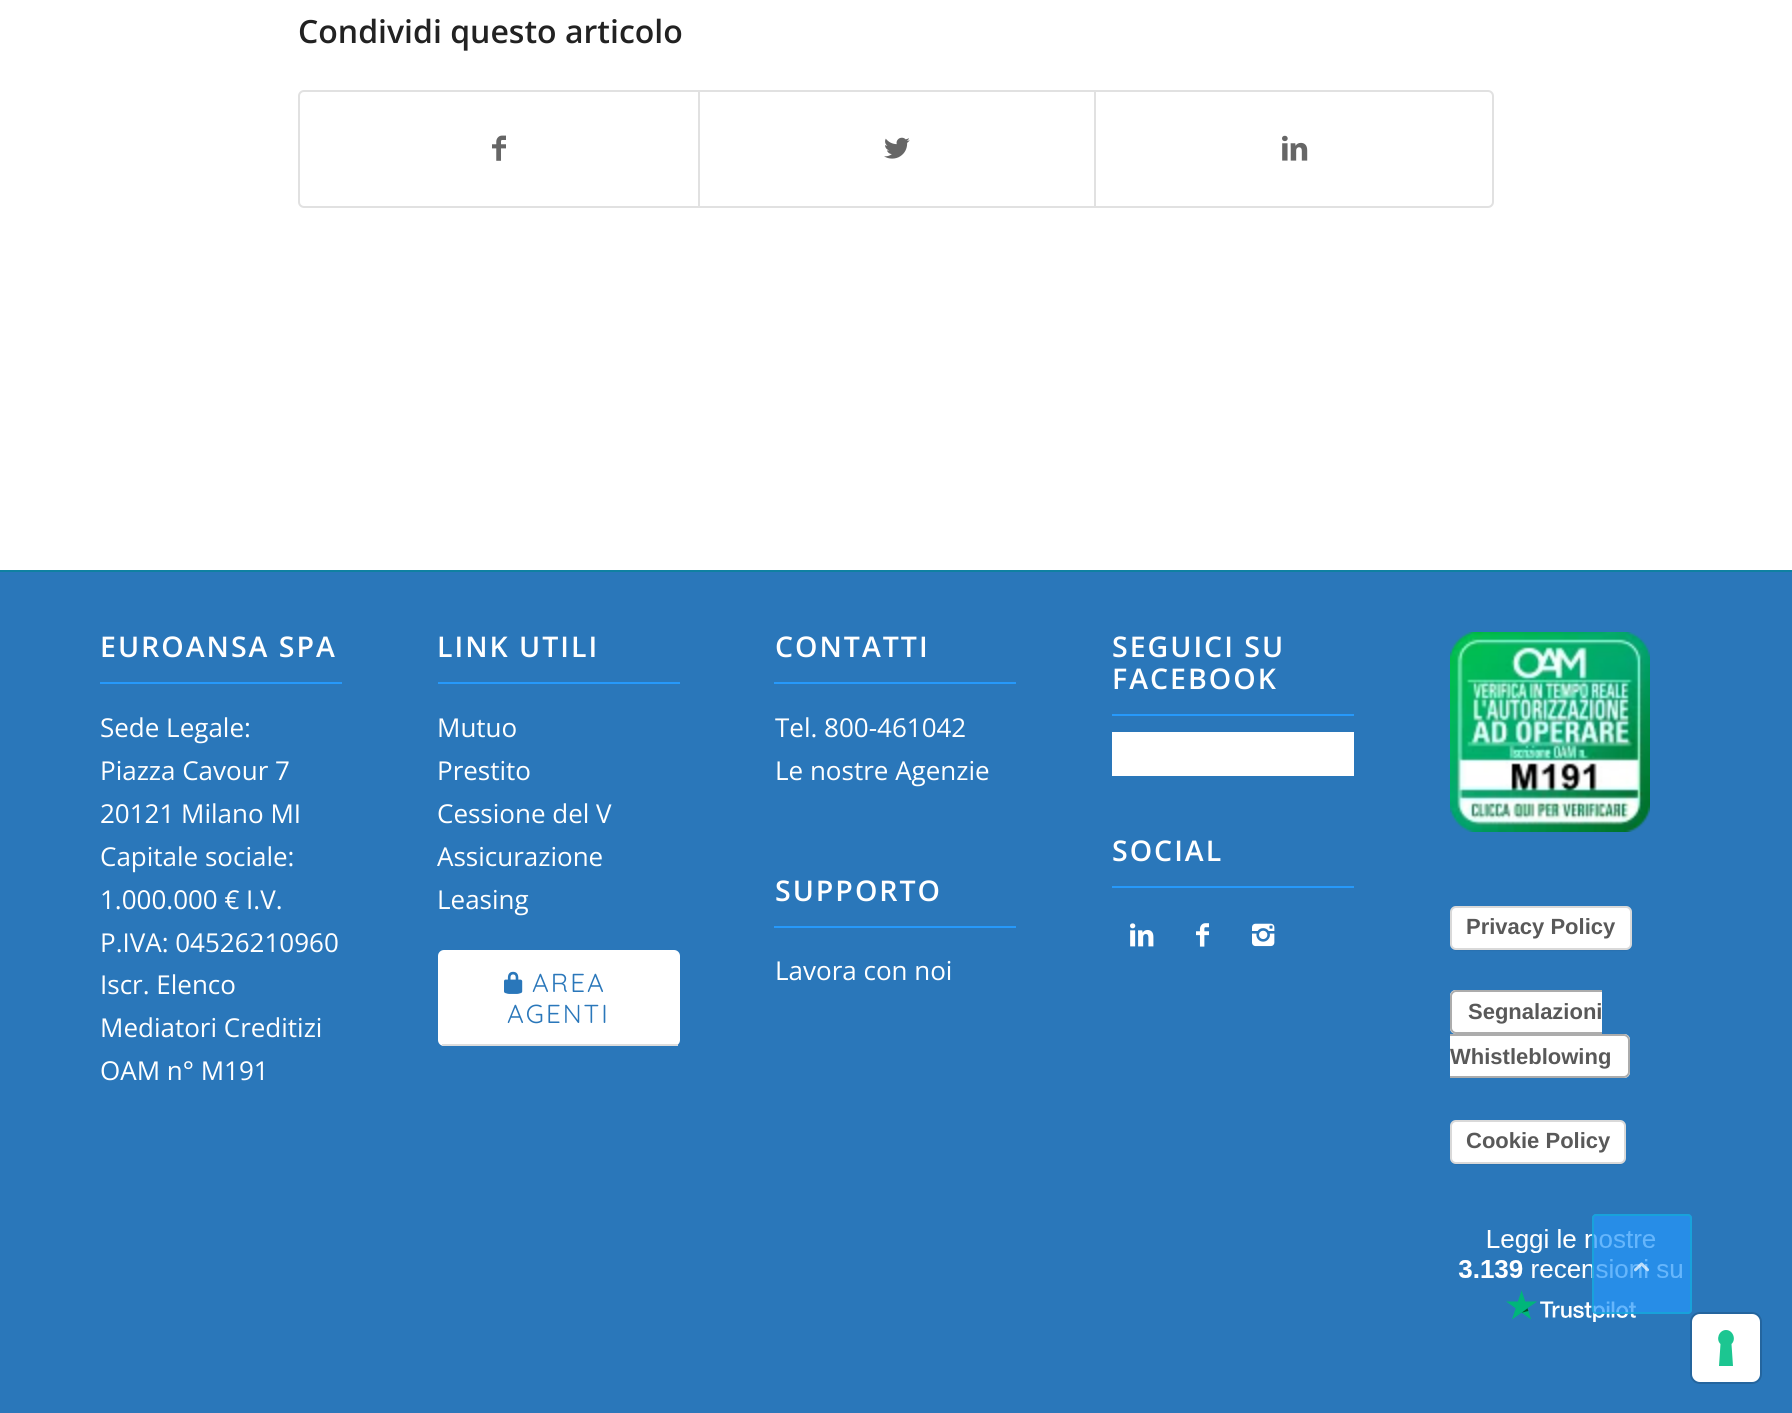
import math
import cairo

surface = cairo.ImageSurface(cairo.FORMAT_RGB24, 1792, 1413)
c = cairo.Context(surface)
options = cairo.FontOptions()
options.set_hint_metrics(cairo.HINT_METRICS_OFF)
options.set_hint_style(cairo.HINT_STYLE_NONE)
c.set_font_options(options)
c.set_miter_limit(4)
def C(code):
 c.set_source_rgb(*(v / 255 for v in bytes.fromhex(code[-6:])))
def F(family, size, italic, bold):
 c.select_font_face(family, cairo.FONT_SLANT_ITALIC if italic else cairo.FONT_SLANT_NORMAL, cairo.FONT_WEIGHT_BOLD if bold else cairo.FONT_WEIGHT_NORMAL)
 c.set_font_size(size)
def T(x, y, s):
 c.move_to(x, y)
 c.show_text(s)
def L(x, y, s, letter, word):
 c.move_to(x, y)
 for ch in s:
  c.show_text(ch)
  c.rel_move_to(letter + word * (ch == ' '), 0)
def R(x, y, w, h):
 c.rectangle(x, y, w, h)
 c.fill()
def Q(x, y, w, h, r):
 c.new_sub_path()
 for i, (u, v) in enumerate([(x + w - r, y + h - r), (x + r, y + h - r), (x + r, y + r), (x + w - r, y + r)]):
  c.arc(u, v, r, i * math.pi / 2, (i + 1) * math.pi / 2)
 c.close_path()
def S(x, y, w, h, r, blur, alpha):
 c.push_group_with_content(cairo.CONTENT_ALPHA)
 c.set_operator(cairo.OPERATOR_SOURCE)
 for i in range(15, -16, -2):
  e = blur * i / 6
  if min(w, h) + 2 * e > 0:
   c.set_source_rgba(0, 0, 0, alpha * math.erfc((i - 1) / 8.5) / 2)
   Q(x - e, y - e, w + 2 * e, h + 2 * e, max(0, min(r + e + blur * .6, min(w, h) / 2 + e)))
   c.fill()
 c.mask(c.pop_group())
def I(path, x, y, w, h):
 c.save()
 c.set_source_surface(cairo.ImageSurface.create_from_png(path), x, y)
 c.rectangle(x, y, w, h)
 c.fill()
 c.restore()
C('ffffff')
c.paint()
F('Open Sans SemiBold',32,0,0)
C('222222')
T(298,43,'Condividi questo articolo')
Q(299,91,1194,116,5)
C('e1e1e1')
c.stroke()
I('1.png',492,135,14,26)
R(698,92,2,114)
I('2.png',884,137,26,22)
R(1094,92,2,114)
I('3.png',1282,135,26,26)
C('2a77ba')
R(0,572,1792,841)
C('0f81a1')
R(0,570,1792,2)
C('2699fb')
R(100,682,242,2)
F('Open Sans SemiBold',28.5,0,0)
C('ffffff')
L(100,657,'EUROANSA SPA',2,0)
F('Open Sans',26,0,0)
T(100,737,'Sede Legale:')
T(100,780,'Piazza Cavour 7')
T(100,823,'20121 Milano MI')
T(100,866,'Capitale sociale:')
T(100,909,'1.000.000 € I.V.')
T(100,952,'P.IVA: 04526210960')
T(100,994,'Iscr. Elenco')
T(100,1037,'Mediatori Creditizi')
T(100,1080,'OAM n° M191')
C('2699fb')
R(438,682,242,2)
F('Open Sans SemiBold',28.5,0,0)
C('ffffff')
L(437,657,'LINK UTILI',2,0)
F('Open Sans',26,0,0)
T(437,737,'Mutuo')
T(437,780,'Prestito')
T(437,823,'Cessione del V')
T(437,866,'Assicurazione')
T(437,909,'Leasing')
Q(438,950,242,96,6)
c.fill()
C('dddddd')
R(442,1044,236,2)
I('4.png',504,971,19,23)
F('Quicksand',26,0,0)
C('2a77ba')
L(532,992,'AREA',2,0)
L(507,1023,'AGENTI',2,0)
C('2699fb')
R(774,682,242,2)
F('Open Sans SemiBold',28.5,0,0)
C('ffffff')
L(775,657,'CONTATTI',2,0)
F('Open Sans',26,0,0)
T(775,737,'Tel. 800-461042')
T(775,780,'Le nostre Agenzie')
C('2699fb')
R(774,926,242,2)
F('Open Sans SemiBold',28.5,0,0)
C('ffffff')
L(775,901,'SUPPORTO',2,0)
F('Open Sans',26,0,0)
T(775,980,'Lavora con noi')
C('2699fb')
R(1112,714,242,2)
F('Open Sans SemiBold',28.5,0,0)
C('ffffff')
L(1112,657,'SEGUICI SU',2,0)
L(1112,689,'FACEBOOK',2,0)
R(1112,732,242,44)
C('2699fb')
R(1112,886,242,2)
C('ffffff')
L(1112,861,'SOCIAL',2,0)
I('5.png',1130,923,24,24)
I('6.png',1196,923,13,24)
I('7.png',1252,923,23,24)
I('8.png',1450,632,200,200)
C('000000')
S(1452,910,178,40,4,1,.15)
C('ffffff')
Q(1450,906,182,44,6)
c.fill()
Q(1451,907,180,42,5)
c.set_source_rgba(0,0,0,0.15)
c.stroke()
F('Liberation Sans',22,0,1)
C('595959')
T(1466,934,'Privacy Policy')
C('ffffff')
c.new_path()
c.move_to(1456,990)
c.line_to(1602,990)
c.line_to(1602,1034)
c.line_to(1456,1034)
c.curve_to(1452.5,1034,1450,1031.5,1450,1028)
c.line_to(1450,996)
c.curve_to(1450,992.5,1452.5,990,1456,990)
c.close_path()
c.fill()
C('acacac')
c.set_fill_rule(cairo.FILL_RULE_EVEN_ODD)
c.new_path()
c.move_to(1456,990)
c.line_to(1602,990)
c.line_to(1602,1034)
c.line_to(1456,1034)
c.curve_to(1453,1034,1450,1031,1450,1028)
c.line_to(1450,996)
c.curve_to(1450,993,1453,990,1456,990)
c.close_path()
c.move_to(1456,992)
c.line_to(1602,992)
c.line_to(1602,1032)
c.line_to(1456,1032)
c.curve_to(1454,1032,1452,1030,1452,1028)
c.line_to(1452,996)
c.curve_to(1452,994,1454,992,1456,992)
c.close_path()
c.fill()
C('595959')
T(1468,1019,'Segnalazioni')
C('ffffff')
c.new_path()
c.move_to(1450,1034)
c.line_to(1624,1034)
c.curve_to(1627.5,1034,1630,1036.5,1630,1040)
c.line_to(1630,1072)
c.curve_to(1630,1075.5,1627.5,1078,1624,1078)
c.line_to(1450,1078)
c.close_path()
c.fill()
C('acacac')
c.new_path()
c.move_to(1450,1034)
c.line_to(1624,1034)
c.curve_to(1627,1034,1630,1037,1630,1040)
c.line_to(1630,1072)
c.curve_to(1630,1075,1627,1078,1624,1078)
c.line_to(1450,1078)
c.close_path()
c.move_to(1450,1036)
c.line_to(1624,1036)
c.curve_to(1626,1036,1628,1038,1628,1040)
c.line_to(1628,1072)
c.curve_to(1628,1074,1626,1076,1624,1076)
c.line_to(1450,1076)
c.close_path()
c.fill()
C('595959')
T(1450,1064,'Whistleblowing')
C('000000')
S(1452,1124,172,40,4,1,.15)
C('ffffff')
Q(1450,1120,176,44,6)
c.fill()
Q(1451,1121,174,42,5)
c.set_source_rgba(0,0,0,0.15)
c.stroke()
C('595959')
T(1466,1148,'Cookie Policy')
I('9.png',1458,1229,224,93)
c.set_source_rgba(0.149,0.596,0.984,0.7)
Q(1592,1214,100,100,4)
c.fill()
Q(1593,1215,98,98,3)
c.set_source_rgba(0.067,0.671,0.839,0.7)
c.stroke()
I('10.png',1634,1262,16,10)
Q(1691,1313,70,70,9)
C('24659e')
c.stroke()
C('ffffff')
Q(1692,1314,68,68,8)
c.fill()
C('1cc691')
c.new_path()
c.move_to(1726,1330)
c.curve_to(1733,1330,1736.5,1339.5,1731.5,1344)
c.line_to(1733,1366)
c.line_to(1719,1366)
c.line_to(1720.5,1344)
c.curve_to(1715.5,1339.5,1719,1330,1726,1330)
c.close_path()
c.fill()
surface.write_to_png('o.png')
